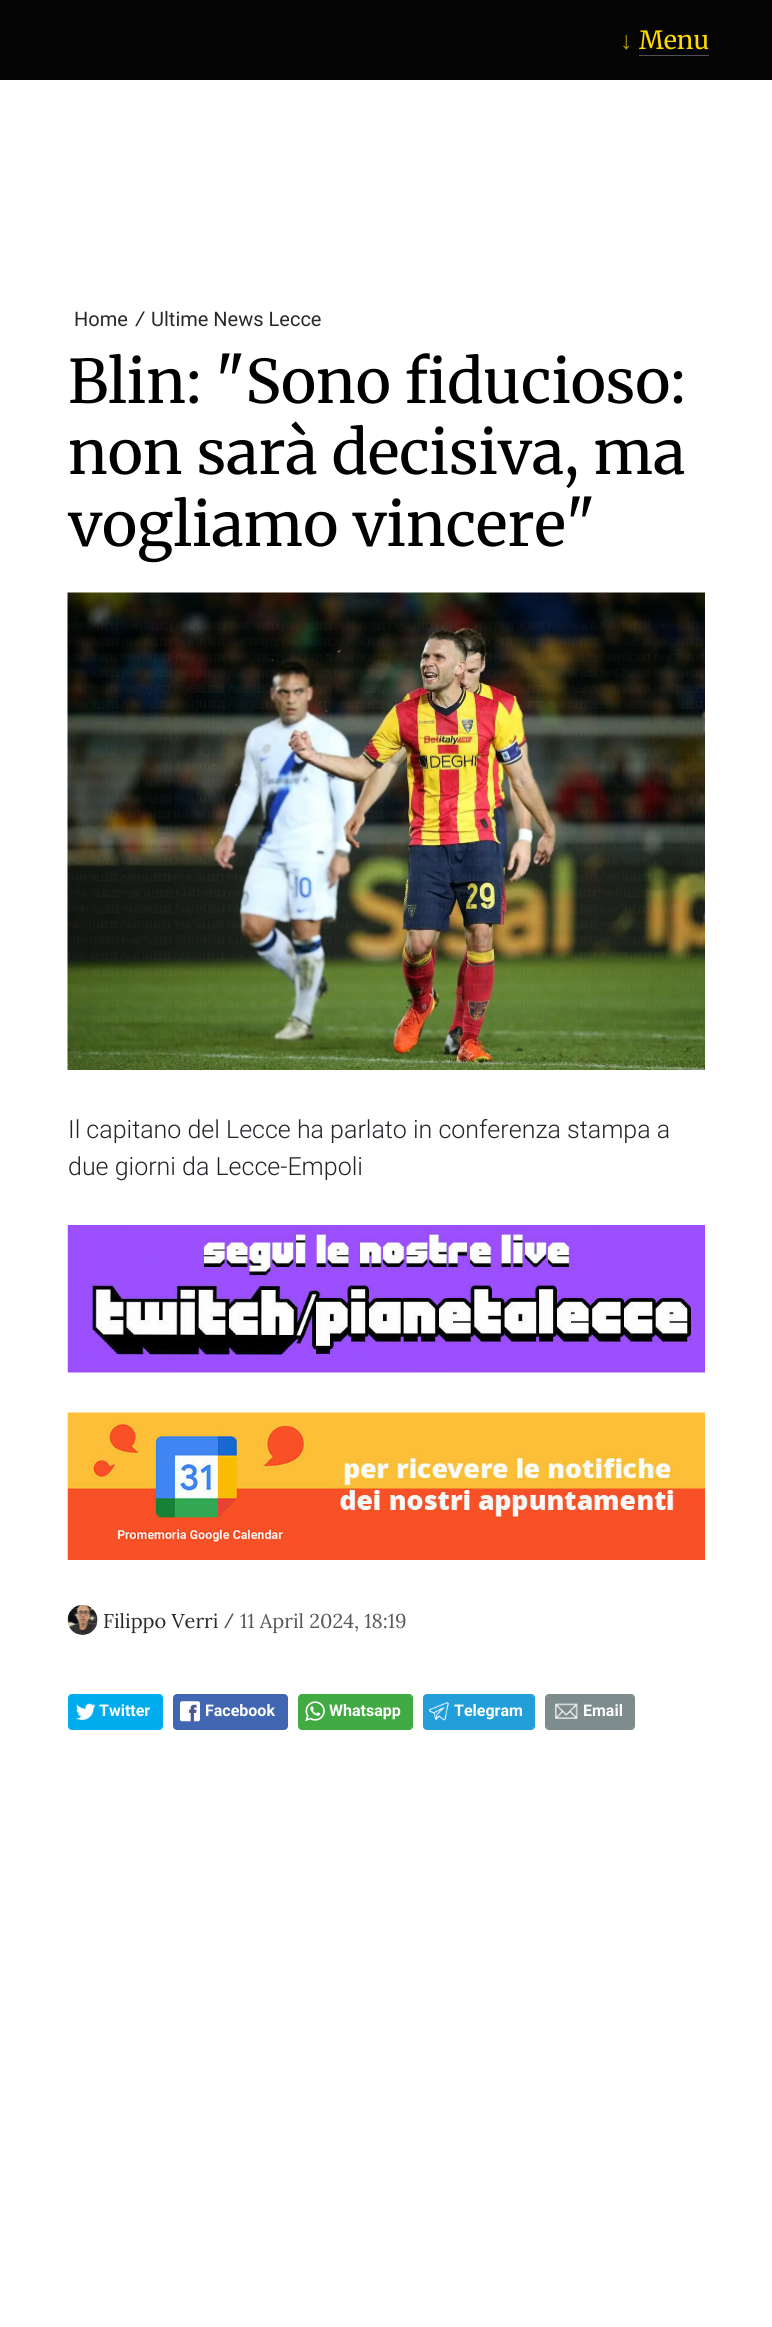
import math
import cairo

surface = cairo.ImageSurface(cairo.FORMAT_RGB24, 772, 2327)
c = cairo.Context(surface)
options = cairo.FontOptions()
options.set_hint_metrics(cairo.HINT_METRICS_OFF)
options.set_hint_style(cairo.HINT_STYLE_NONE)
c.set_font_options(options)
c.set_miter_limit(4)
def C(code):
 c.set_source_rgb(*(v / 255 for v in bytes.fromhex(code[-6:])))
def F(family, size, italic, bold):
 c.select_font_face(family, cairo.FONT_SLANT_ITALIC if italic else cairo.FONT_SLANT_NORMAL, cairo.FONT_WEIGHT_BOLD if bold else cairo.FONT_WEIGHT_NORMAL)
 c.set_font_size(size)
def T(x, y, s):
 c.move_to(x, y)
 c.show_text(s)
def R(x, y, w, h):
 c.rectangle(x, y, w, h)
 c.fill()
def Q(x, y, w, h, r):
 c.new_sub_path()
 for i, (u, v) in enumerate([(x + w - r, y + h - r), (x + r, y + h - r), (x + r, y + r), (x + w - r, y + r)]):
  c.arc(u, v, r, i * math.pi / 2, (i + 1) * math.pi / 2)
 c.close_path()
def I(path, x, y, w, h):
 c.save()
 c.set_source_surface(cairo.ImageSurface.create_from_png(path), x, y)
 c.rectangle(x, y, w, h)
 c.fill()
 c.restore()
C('ffffff')
c.paint()
C('050505')
R(0,0,772,80)
F('Liberation Sans',25,0,0)
C('b49a02')
T(620,49,'↓')
F('Merriweather Light',25,0,0)
C('ffda00')
T(639,49,'Menu')
C('505050')
R(639,55,70,1)
F('Roboto',20,0,0)
C('292929')
T(74,326,'Home')
F('Liberation Mono',20,0,0)
C('212529')
T(134,326,'/')
F('Roboto',20,0,0)
C('292929')
T(151,326,'Ultime News Lecce')
F('Merriweather Light',60,0,0)
C('000000')
T(68,403,'Blin: "Sono fiducioso:')
T(68,474,'non sarà decisiva, ma')
T(68,546,'vogliamo vincere"')
I('1.png',67,592,638,478)
F('Roboto Light',25,0,0)
C('212529')
T(68,1138,'Il capitano del Lecce ha parlato in conferenza stampa a')
T(68,1175,'due giorni da Lecce-Empoli')
I('2.png',67,1225,638,148)
I('3.png',67,1412,638,148)
I('4.png',67,1605,31,30)
F('Lora',20,0,0)
C('292929')
T(103,1628,'Filippo Verri')
F('Liberation Mono',20,0,0)
C('595959')
T(223,1628,'/')
F('Lora',20,0,0)
T(240,1628,'11 April 2024, 18:19')
C('00acee')
Q(68,1694,95,36,4)
c.fill()
I('5.png',76,1703,20,17)
F('Roboto',16,0,1)
C('ffffff')
T(99,1716,'Twitter')
C('4267b2')
Q(173,1694,115,36,4)
c.fill()
I('6.png',180,1701,20,21)
C('ffffff')
T(205,1716,'Facebook')
C('42aa42')
Q(298,1694,115,36,4)
c.fill()
I('7.png',305,1701,20,21)
C('ffffff')
T(329,1716,'Whatsapp')
C('229ed9')
Q(423,1694,112,36,4)
c.fill()
I('8.png',429,1702,20,19)
C('ffffff')
T(454,1716,'Telegram')
C('7f8c8d')
Q(545,1694,90,36,4)
c.fill()
I('9.png',555,1703,23,16)
C('ffffff')
T(583,1716,'Email')
surface.write_to_png('o.png')
